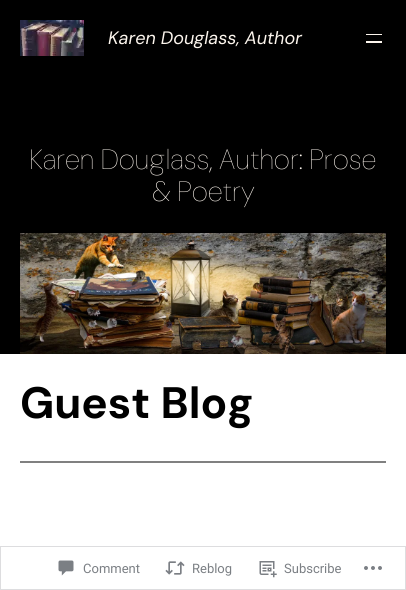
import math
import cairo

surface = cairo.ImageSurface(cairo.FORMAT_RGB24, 406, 590)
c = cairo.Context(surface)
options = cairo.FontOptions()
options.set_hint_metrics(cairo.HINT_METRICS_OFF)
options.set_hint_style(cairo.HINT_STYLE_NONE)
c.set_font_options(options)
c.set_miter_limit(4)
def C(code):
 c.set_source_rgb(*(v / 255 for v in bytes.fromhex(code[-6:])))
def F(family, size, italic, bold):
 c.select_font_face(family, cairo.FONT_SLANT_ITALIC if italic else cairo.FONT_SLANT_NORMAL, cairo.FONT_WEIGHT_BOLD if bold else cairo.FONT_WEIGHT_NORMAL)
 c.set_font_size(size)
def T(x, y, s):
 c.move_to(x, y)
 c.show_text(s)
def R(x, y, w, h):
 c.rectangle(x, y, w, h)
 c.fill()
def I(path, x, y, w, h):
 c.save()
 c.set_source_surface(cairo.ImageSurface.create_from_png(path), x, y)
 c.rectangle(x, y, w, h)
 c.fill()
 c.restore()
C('ffffff')
c.paint()
C('000000')
R(0,0,406,354)
I('1.png',20,20,64,36)
F('DM Sans',18,1,0)
C('fcf5ed')
T(108,44,'Karen Douglass, Author')
R(366,34,16,1)
R(366,41,16,2)
F('DM Sans Thin',28,0,0)
T(29,169,'Karen Douglass, Author: Prose')
T(152,201,'& Poetry')
I('2.png',20,233,366,121)
F('DM Sans',44,0,1)
C('000000')
T(20,418,'Guest Blog')
C('808080')
R(20,461,366,2)
c.rectangle(.5,546.5,405,43)
c.set_source_rgba(0.863,0.863,0.871,0.98)
c.set_line_width(1)
c.stroke()
I('3.png',58,560,16,16)
F('Roboto',13,0,0)
C('7b7f84')
T(83,573,'Comment')
I('4.png',165,561,20,14)
T(192,573,'Reblog')
I('5.png',259,561,18,17)
T(284,573,'Subscribe')
I('6.png',364,566,18,4)
surface.write_to_png('o.png')
